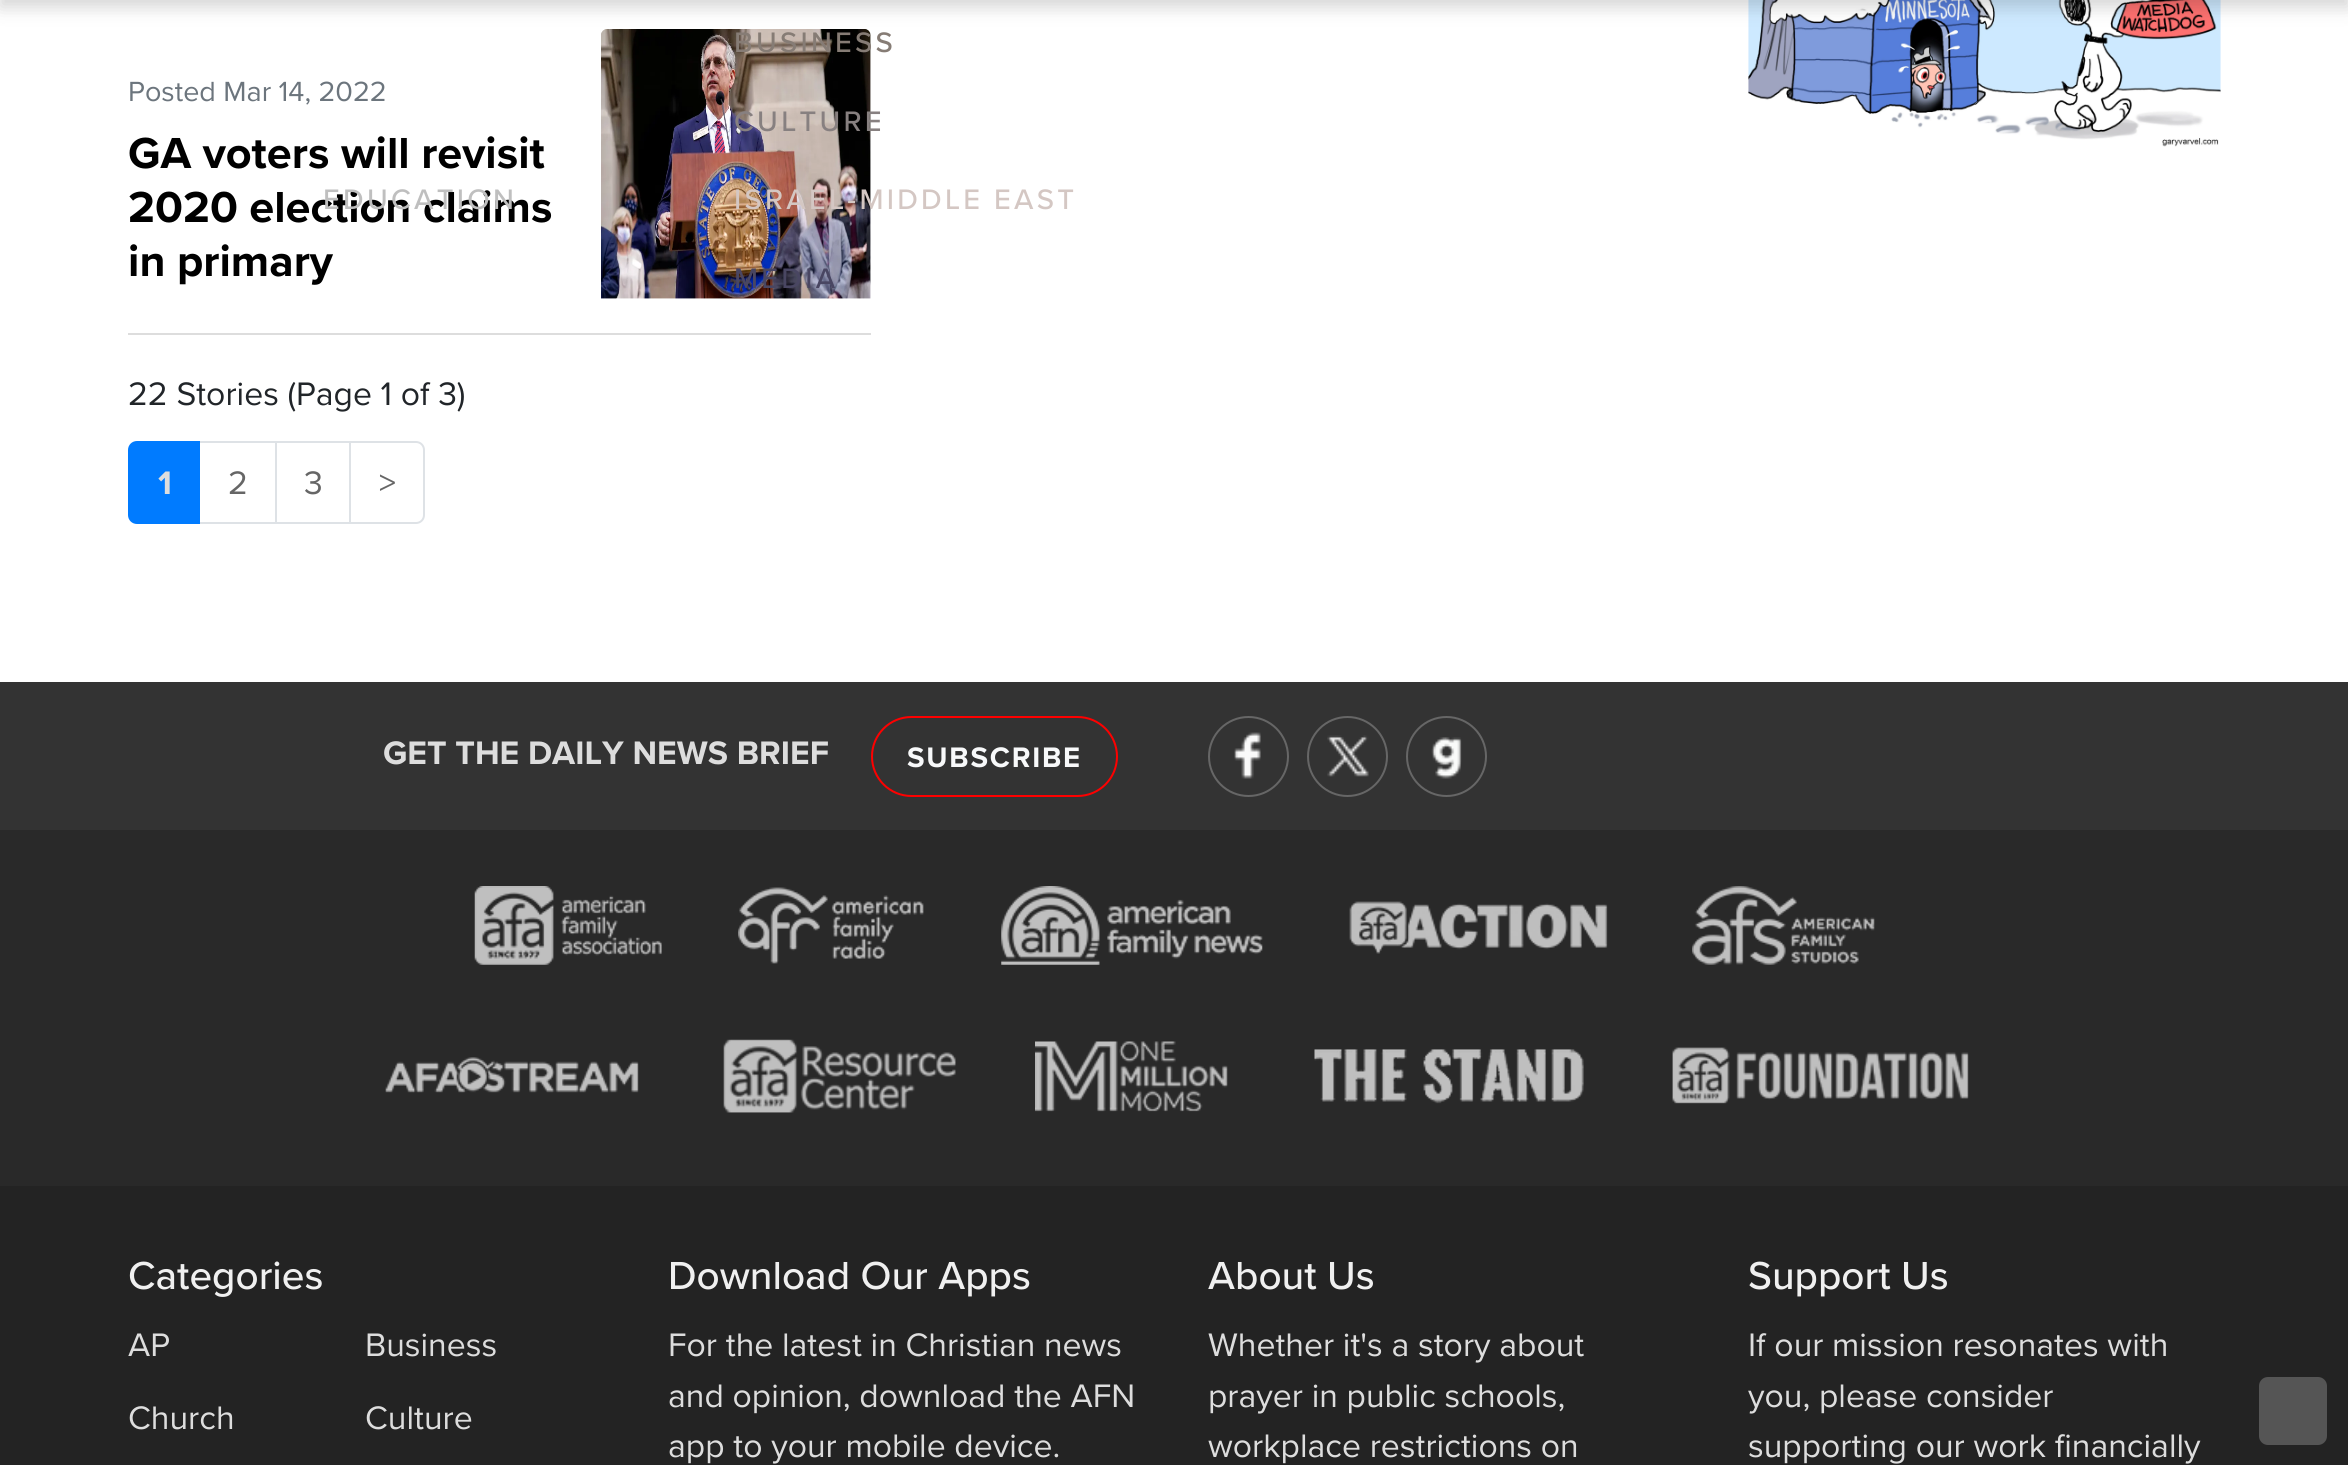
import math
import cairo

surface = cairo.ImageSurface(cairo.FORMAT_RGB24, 2348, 1465)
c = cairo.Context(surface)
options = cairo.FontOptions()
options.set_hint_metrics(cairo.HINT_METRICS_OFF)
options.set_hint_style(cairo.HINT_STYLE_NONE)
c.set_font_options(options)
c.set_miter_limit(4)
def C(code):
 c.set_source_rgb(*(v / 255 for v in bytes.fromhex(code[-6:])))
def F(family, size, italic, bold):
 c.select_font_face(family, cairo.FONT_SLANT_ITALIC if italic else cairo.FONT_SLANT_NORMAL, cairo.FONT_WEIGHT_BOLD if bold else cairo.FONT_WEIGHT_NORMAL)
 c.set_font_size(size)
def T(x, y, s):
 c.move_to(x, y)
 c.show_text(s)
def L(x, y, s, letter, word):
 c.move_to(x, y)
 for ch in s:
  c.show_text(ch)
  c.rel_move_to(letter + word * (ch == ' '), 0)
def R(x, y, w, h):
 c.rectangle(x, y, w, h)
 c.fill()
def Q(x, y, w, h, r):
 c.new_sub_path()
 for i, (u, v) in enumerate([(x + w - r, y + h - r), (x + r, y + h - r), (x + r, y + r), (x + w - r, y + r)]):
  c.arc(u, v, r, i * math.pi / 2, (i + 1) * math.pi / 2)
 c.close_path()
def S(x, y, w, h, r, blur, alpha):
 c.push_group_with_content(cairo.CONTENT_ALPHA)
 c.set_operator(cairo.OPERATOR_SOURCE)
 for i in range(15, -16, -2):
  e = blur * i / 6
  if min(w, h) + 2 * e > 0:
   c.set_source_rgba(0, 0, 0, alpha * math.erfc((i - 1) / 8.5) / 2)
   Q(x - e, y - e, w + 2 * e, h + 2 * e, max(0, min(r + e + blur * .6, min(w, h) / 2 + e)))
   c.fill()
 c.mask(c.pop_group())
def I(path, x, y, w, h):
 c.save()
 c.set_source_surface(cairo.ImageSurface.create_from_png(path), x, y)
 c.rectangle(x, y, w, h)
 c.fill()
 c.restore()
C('ffffff')
c.paint()
I('1.png',601,29,270,270)
I('2.png',1748,0,473,147)
C('000000')
S(0,-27,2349,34,0,9,.17)
F('Proxima Nova Medium',29.25,0,0)
C('867c75')
L(734,52,'BUSINESS',3.25,0)
C('878080')
L(734,131,'CULTURE',3.25,0)
F('Proxima Nova',45,0,1)
C('000000')
T(128,222,'2020 election claims')
F('Proxima Nova Medium',29.25,0,0)
C('bfbfbf')
L(323,209,'EDUCATION',3.25,0)
C('d4c7c3')
L(734,209,'ISRAEL-MIDDLE EAST',3.25,0)
C('494662')
L(734,288,'MEDIA',3.25,0)
C('dddddd')
R(128,333,743,2)
F('Proxima Nova',28.75,0,0)
C('6c757d')
T(128,101,'Posted Mar 14, 2022')
F('Proxima Nova',45,0,1)
C('000000')
T(128,168,'GA voters will revisit')
T(128,276,'in primary')
F('Proxima Nova',33.75,0,0)
C('212529')
T(128,405,'22 Stories (Page 1 of 3)')
c.rectangle(199,442,77,81)
C('dee2e6')
c.stroke()
C('007bff')
c.new_path()
c.move_to(137,442)
c.line_to(199,442)
c.line_to(199,523)
c.line_to(137,523)
c.curve_to(132.5,523,129,519.5,129,515)
c.line_to(129,450)
c.curve_to(129,445.5,132.5,442,137,442)
c.close_path()
c.fill_preserve()
c.stroke()
F('Proxima Nova',33.75,0,1)
C('dddddd')
T(158,494,'1')
F('Proxima Nova',33.75,0,0)
C('666666')
T(228,494,'2')
c.rectangle(276,442,74,81)
C('dee2e6')
c.stroke()
C('666666')
T(304,494,'3')
C('ffffff')
c.new_path()
c.move_to(350,442)
c.line_to(416,442)
c.curve_to(420.5,442,424,445.5,424,450)
c.line_to(424,515)
c.curve_to(424,519.5,420.5,523,416,523)
c.line_to(350,523)
c.close_path()
c.fill_preserve()
C('dee2e6')
c.stroke()
C('666666')
T(379,494,'>')
C('232323')
R(0,1186,2348,279)
C('333333')
R(0,682,2348,148)
F('Proxima Nova',33.75,0,1)
C('dddddd')
T(383,764,'GET THE DAILY NEWS BRIEF')
Q(872,717,245,79,39.5)
C('ff0000')
c.stroke()
F('Proxima Nova',29.25,0,1)
C('f8f9fa')
L(907,767,'SUBSCRIBE',1.75,0)
c.new_path()
c.arc(1248.5,756.5,39.5,0,2 * math.pi)
C('666666')
c.stroke()
I('3.png',1234,732,27,47)
c.arc(1347.5,756.5,39.5,0,2 * math.pi)
c.stroke()
I('4.png',1327,735,42,42)
c.arc(1446.5,756.5,39.5,0,2 * math.pi)
c.stroke()
I('5.png',1431,737,31,42)
C('292929')
R(0,830,2348,356)
I('6.png',474,886,188,79)
I('7.png',738,887,186,77)
I('8.png',1001,886,262,79)
I('9.png',1349,901,259,53)
I('10.png',1692,886,183,79)
I('11.png',385,1057,254,36)
I('12.png',723,1039,233,74)
I('13.png',1035,1041,193,71)
I('14.png',1314,1049,270,55)
I('15.png',1672,1047,297,57)
F('Proxima Nova Medium',40.5,0,0)
C('f0f0f0')
T(128,1289,'Categories')
F('Proxima Nova',33.75,0,0)
C('dddddd')
T(128,1356,'AP')
T(365,1356,'Business')
T(128,1429,'Church')
T(365,1429,'Culture')
F('Proxima Nova Medium',40.5,0,0)
C('f0f0f0')
T(668,1289,'Download Our Apps')
F('Proxima Nova',33.75,0,0)
C('dddddd')
T(668,1356,'For the latest in Christian news')
T(668,1407,'and opinion, download the AFN')
T(668,1457,'app to your mobile device.')
F('Proxima Nova Medium',40.5,0,0)
C('f0f0f0')
T(1208,1289,'About Us')
F('Proxima Nova',33.75,0,0)
C('dddddd')
T(1208,1356,'Whether it\'s a story about')
T(1208,1407,'prayer in public schools,')
T(1208,1457,'workplace restrictions on')
F('Proxima Nova Medium',40.5,0,0)
C('f0f0f0')
T(1748,1289,'Support Us')
F('Proxima Nova',33.75,0,0)
C('dddddd')
T(1748,1356,'If our mission resonates with')
T(1748,1407,'you, please consider')
T(1748,1457,'supporting our work financially')
C('555555')
Q(2259,1377,68,68,9)
c.fill()
surface.write_to_png('o.png')
